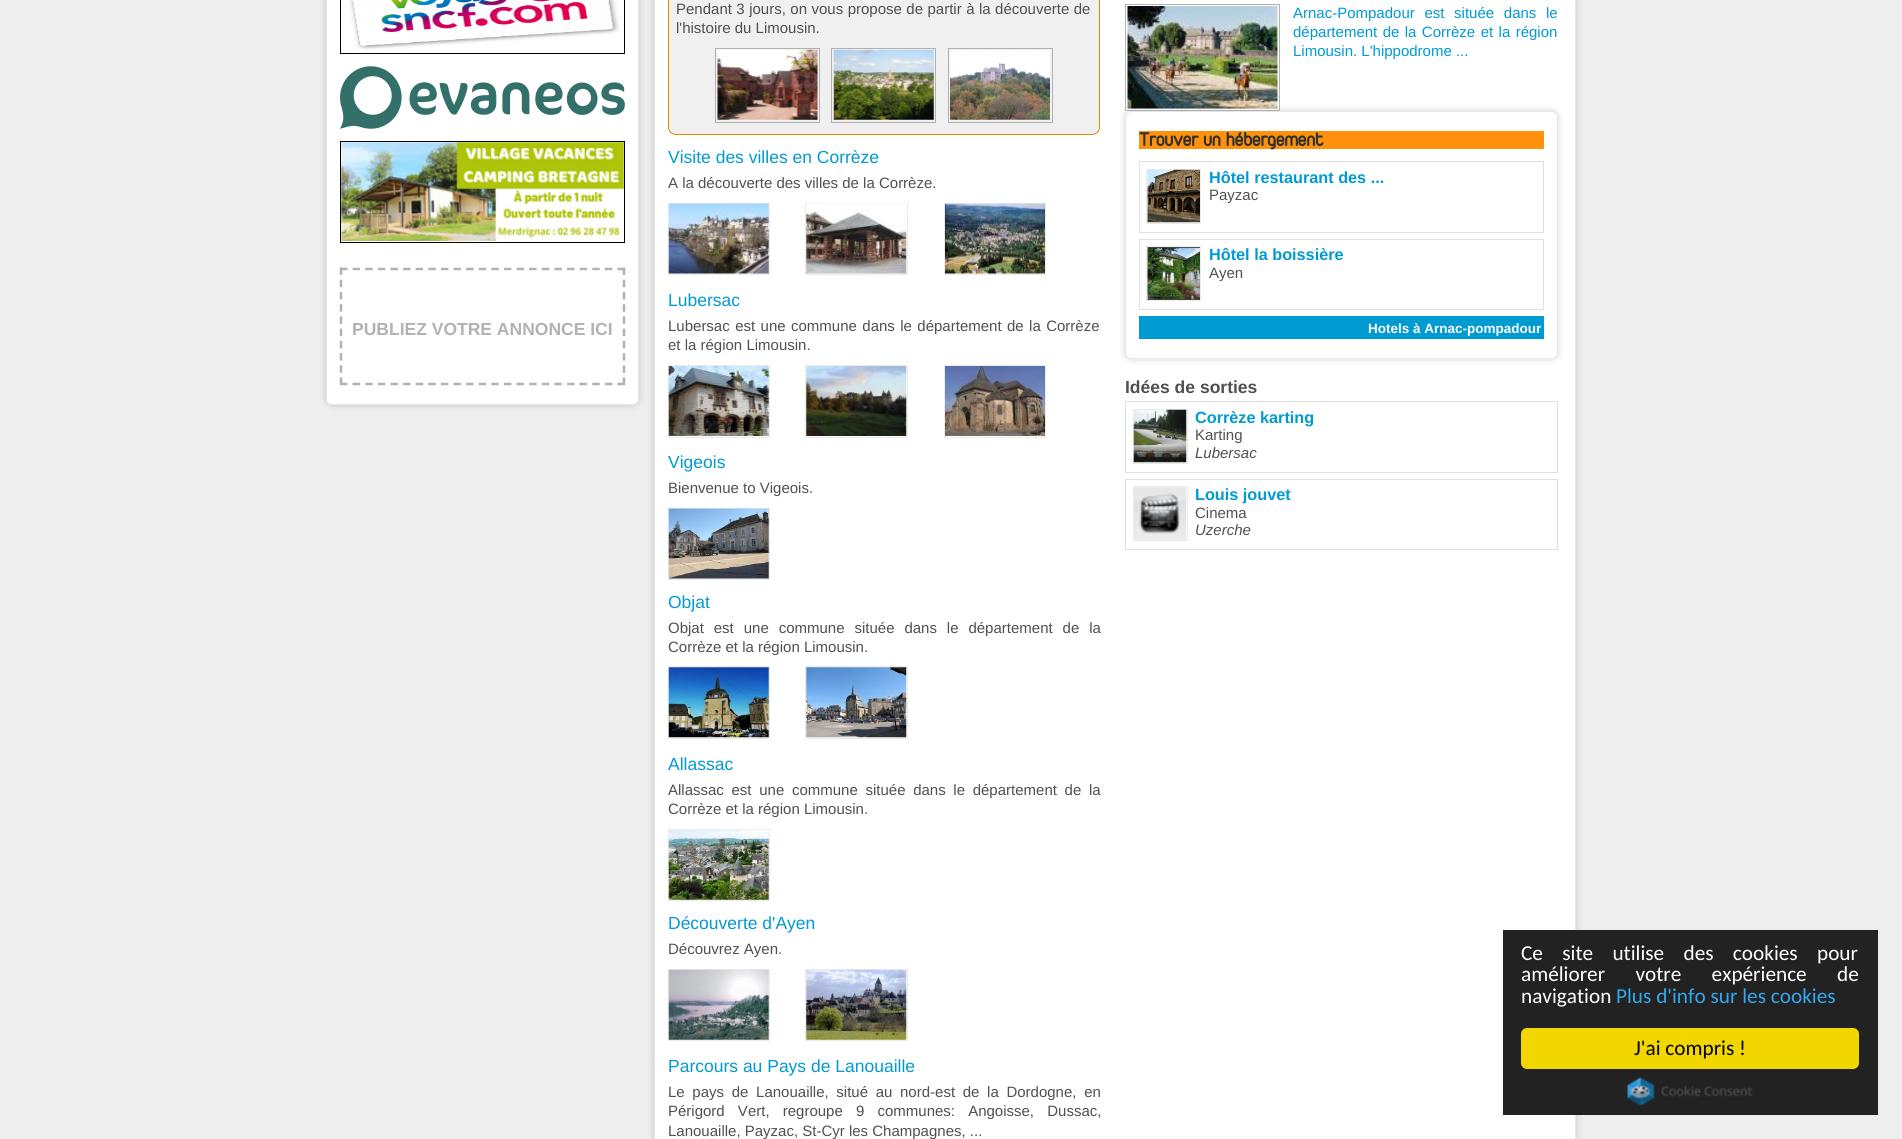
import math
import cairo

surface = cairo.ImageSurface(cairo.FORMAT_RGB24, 1902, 1139)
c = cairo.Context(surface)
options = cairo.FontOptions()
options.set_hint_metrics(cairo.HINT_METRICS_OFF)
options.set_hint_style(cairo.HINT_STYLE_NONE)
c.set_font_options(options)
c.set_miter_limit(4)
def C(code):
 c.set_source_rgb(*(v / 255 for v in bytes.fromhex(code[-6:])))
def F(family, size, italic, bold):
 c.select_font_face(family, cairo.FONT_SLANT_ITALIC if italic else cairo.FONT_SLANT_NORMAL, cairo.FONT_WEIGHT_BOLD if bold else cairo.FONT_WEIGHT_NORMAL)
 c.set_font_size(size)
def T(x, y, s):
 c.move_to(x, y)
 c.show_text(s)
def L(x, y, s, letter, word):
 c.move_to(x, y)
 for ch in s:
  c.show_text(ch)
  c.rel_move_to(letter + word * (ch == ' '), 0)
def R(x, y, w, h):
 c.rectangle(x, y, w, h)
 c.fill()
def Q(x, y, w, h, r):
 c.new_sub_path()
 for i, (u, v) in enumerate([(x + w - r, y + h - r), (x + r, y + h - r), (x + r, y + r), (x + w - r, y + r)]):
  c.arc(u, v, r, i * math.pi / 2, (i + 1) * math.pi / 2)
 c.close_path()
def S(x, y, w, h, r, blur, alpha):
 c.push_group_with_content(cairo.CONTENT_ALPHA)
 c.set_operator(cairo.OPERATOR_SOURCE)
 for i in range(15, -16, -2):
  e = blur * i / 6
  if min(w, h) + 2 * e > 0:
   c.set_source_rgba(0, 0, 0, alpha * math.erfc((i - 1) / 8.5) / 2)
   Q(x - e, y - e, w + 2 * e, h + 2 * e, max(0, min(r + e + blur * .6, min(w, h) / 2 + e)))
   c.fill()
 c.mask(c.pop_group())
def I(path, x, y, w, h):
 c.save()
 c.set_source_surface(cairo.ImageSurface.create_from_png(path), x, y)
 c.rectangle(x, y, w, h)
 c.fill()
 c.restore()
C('eeeeee')
c.paint()
C('000000')
S(326,-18,313,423,6,4,.16)
C('ffffff')
Q(326,-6,313,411,6)
c.fill()
Q(326.5,-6.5,312,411,5.5)
c.set_source_rgba(0.741,0.741,0.741,0.39)
c.set_line_width(1)
c.stroke()
c.rectangle(340.5,-.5,284,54)
C('000000')
c.stroke()
I('1.png',349,0,271,50)
I('2.png',340,66,285,63)
c.rectangle(340.5,141.5,284,101)
c.stroke()
I('3.png',341,142,283,99)
c.new_path()
c.move_to(340,269)
c.line_to(625,269)
C('b2b2b2')
c.set_line_width(2.5)
c.set_dash([7.5,5.11])
c.stroke()
c.new_path()
c.move_to(624,267.5)
c.line_to(624,385)
c.set_dash([7.5,4.72])
c.stroke()
c.new_path()
c.move_to(340,384)
c.line_to(625,384)
c.set_dash([7.5,5.11])
c.stroke()
c.new_path()
c.move_to(341,267.5)
c.line_to(341,385)
c.set_dash([7.5,4.72])
c.stroke()
F('Liberation Sans',17.5,0,1)
T(352,335,'PUBLIEZ VOTRE ANNONCE ICI')
C('000000')
S(654,-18,922,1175,6,4,.16)
C('ffffff')
c.rectangle(654.5,-.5,921,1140)
c.fill_preserve()
C('e5e5e5')
c.set_line_width(1)
c.set_dash([])
c.stroke()
C('f0f0f0')
Q(669,-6,430,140,6)
c.fill()
Q(668.5,-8.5,431,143,7.5)
C('d18f00')
c.stroke()
F('Liberation Sans',15,0,0)
C('505050')
L(676,14,'Pendant 3 jours, on vous propose de partir à la découverte de',0,.3)
T(676,33,'l\'histoire du Limousin.')
c.rectangle(715.5,48.5,104,74)
C('b2b2b2')
c.stroke()
c.rectangle(831.5,48.5,104,74)
c.stroke()
c.rectangle(948.5,48.5,104,74)
c.stroke()
I('4.png',717,49,101,71)
I('5.png',833,49,101,71)
I('6.png',950,50,100,70)
F('Liberation Sans',17.5,0,0)
C('009ad2')
T(668,163,'Visite des villes en Corrèze')
F('Liberation Sans',15,0,0)
C('505050')
T(668,188,'A la découverte des villes de la Corrèze.')
c.rectangle(668.5,203.5,101,71)
C('ebebeb')
c.stroke()
I('7.png',668,203,101,71)
c.rectangle(805.5,203.5,102,71)
c.stroke()
I('8.png',806,203,101,71)
c.rectangle(944.5,203.5,101,71)
c.stroke()
I('9.png',945,203,100,71)
F('Liberation Sans',17.5,0,0)
C('009ad2')
T(668,306,'Lubersac')
F('Liberation Sans',15,0,0)
C('505050')
L(668,331,'Lubersac est une commune dans le département de la Corrèze',0,1.25)
T(668,350,'et la région Limousin.')
c.rectangle(668.5,365.5,101,72)
C('ebebeb')
c.stroke()
c.rectangle(805.5,365.5,102,72)
c.stroke()
c.rectangle(944.5,365.5,101,72)
c.stroke()
I('10.png',668,366,101,70)
I('11.png',806,366,101,70)
I('12.png',945,366,100,70)
F('Liberation Sans',17.5,0,0)
C('009ad2')
T(668,468,'Vigeois')
F('Liberation Sans',15,0,0)
C('505050')
T(668,493,'Bienvenue to Vigeois.')
c.rectangle(668.5,508.5,101,71)
C('ebebeb')
c.stroke()
I('13.png',668,508,101,71)
F('Liberation Sans',17.5,0,0)
C('009ad2')
T(668,608,'Objat')
F('Liberation Sans',15,0,0)
C('505050')
L(668,633,'Objat est une commune située dans le département de la',0,5.75)
T(668,652,'Corrèze et la région Limousin.')
c.rectangle(668.5,666.5,101,72)
C('ebebeb')
c.stroke()
c.rectangle(805.5,666.5,102,72)
c.stroke()
I('14.png',668,667,101,71)
I('15.png',806,667,101,71)
F('Liberation Sans',17.5,0,0)
C('009ad2')
T(668,770,'Allassac')
F('Liberation Sans',15,0,0)
C('505050')
L(668,795,'Allassac est une commune située dans le département de la',0,3.5)
T(668,814,'Corrèze et la région Limousin.')
c.rectangle(668.5,829.5,101,71)
C('ebebeb')
c.stroke()
I('16.png',668,829,101,71)
F('Liberation Sans',17.5,0,0)
C('009ad2')
T(668,929,'Découverte d\'Ayen')
F('Liberation Sans',15,0,0)
C('505050')
T(668,954,'Découvrez Ayen.')
c.rectangle(668.5,969.5,101,71)
C('ebebeb')
c.stroke()
I('17.png',668,969,101,71)
c.rectangle(805.5,969.5,102,71)
c.stroke()
I('18.png',806,969,101,71)
F('Liberation Sans',17.5,0,0)
C('009ad2')
T(668,1072,'Parcours au Pays de Lanouaille')
F('Liberation Sans',15,0,0)
C('505050')
L(668,1097,'Le pays de Lanouaille, situé au nord-est de la Dordogne, en',0,3.5)
L(668,1116,'Périgord Vert, regroupe 9 communes: Angoisse, Dussac,',0,9)
T(668,1136,'Lanouaille, Payzac, St-Cyr les Champagnes, ...')
C('000000')
S(1125,111,433,248,6,4,.16)
c.rectangle(1125.5,4.5,154,106)
C('b2b2b2')
c.stroke()
I('19.png',1127,6,151,103)
C('009ad2')
L(1293,18,'Arnac-Pompadour est située dans le',0,5.5)
L(1293,37,'département de la Corrèze et la région',0,1.25)
T(1293,56,'Limousin. L\'hippodrome ...')
C('ffffff')
Q(1125,111,433,248,6)
c.fill()
Q(1125.5,111.5,432,247,5.5)
c.set_source_rgba(0.741,0.741,0.741,0.39)
c.stroke()
C('ff910c')
R(1139,131,405,18)
F('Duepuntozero',20,0,1)
C('303030')
T(1139,146,'Trouver un hébergement')
c.rectangle(1139.5,161.5,404,71)
C('e0e0e0')
c.stroke()
c.rectangle(1146.5,169.5,54,54)
C('ebebeb')
c.stroke()
I('20.png',1147,169,53,54)
F('Liberation Sans',16.25,0,1)
C('009ad2')
T(1209,183,'Hôtel restaurant des ...')
F('Liberation Sans',15,0,0)
C('505050')
T(1209,200,'Payzac')
c.rectangle(1139.5,239.5,404,70)
C('e0e0e0')
c.stroke()
c.rectangle(1146.5,246.5,54,54)
C('ebebeb')
c.stroke()
I('21.png',1147,247,53,53)
F('Liberation Sans',16.25,0,1)
C('009ad2')
T(1209,260,'Hôtel la boissière')
F('Liberation Sans',15,0,0)
C('505050')
T(1209,278,'Ayen')
C('009ad2')
R(1139,316,405,23)
F('Liberation Sans',13.5,0,1)
C('ffffff')
T(1368,333,'Hotels à Arnac-pompadour')
F('Liberation Sans',17.5,0,1)
C('505050')
T(1125,393,'Idées de sorties')
c.rectangle(1125.5,401.5,432,71)
C('e0e0e0')
c.stroke()
c.rectangle(1133.5,409.5,54,54)
C('ebebeb')
c.stroke()
I('22.png',1133,409,54,54)
F('Liberation Sans',16.25,0,1)
C('009ad2')
T(1195,423,'Corrèze karting')
F('Liberation Sans',15,0,0)
C('505050')
T(1195,440,'Karting')
F('Liberation Sans',15,1,0)
T(1195,458,'Lubersac')
c.rectangle(1125.5,479.5,432,70)
C('e0e0e0')
c.stroke()
c.rectangle(1133.5,486.5,54,54)
C('ebebeb')
c.stroke()
I('23.png',1134,487,53,53)
F('Liberation Sans',16.25,0,1)
C('009ad2')
T(1195,500,'Louis jouvet')
F('Liberation Sans',15,0,0)
C('505050')
T(1195,518,'Cinema')
F('Liberation Sans',15,1,0)
T(1195,535,'Uzerche')
C('222222')
R(1503,930,375,185)
F('Carlito',21.25,0,0)
C('ffffff')
L(1521,960,'Ce site utilise des cookies pour',0,14.5)
L(1521,981,'améliorer votre expérience de',0,25.5)
T(1521,1003,'navigation')
C('31a8f0')
T(1616,1003,'Plus d\'info sur les cookies')
C('f1d600')
Q(1521,1028,338,41,6)
c.fill()
C('000000')
T(1634,1055,'J\'ai compris !')
I('24.png',1627,1077,126,29)
surface.write_to_png('o.png')
